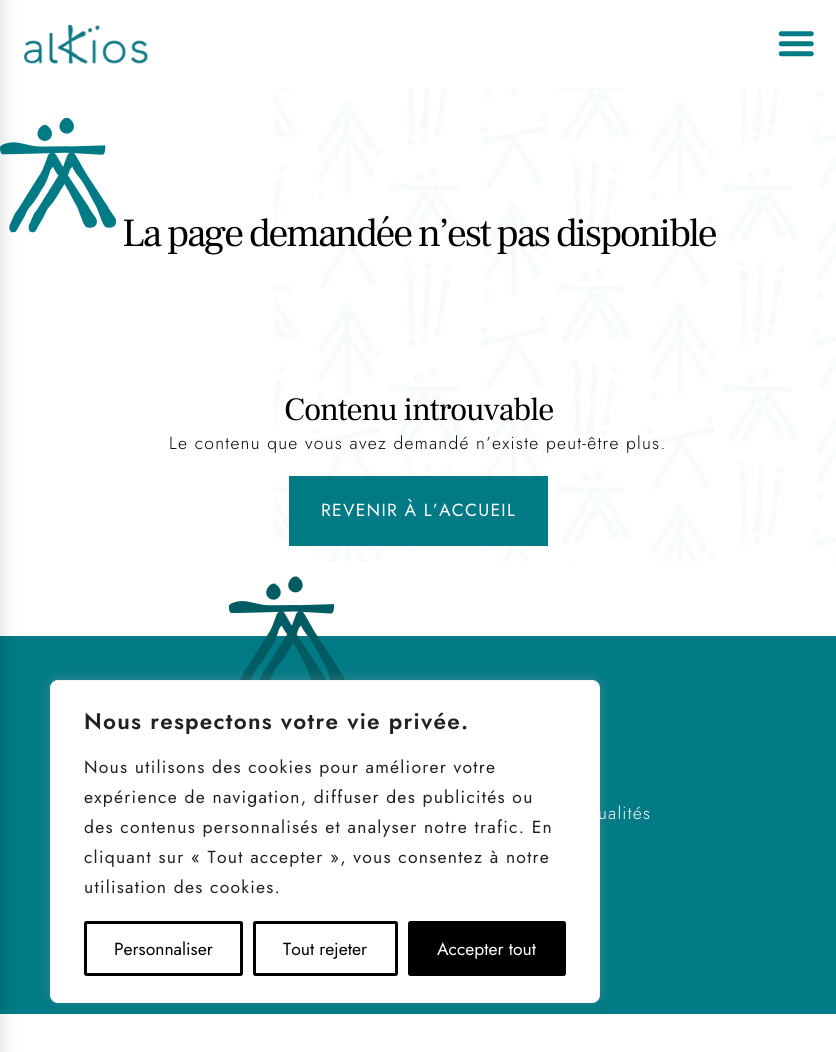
import math
import cairo

surface = cairo.ImageSurface(cairo.FORMAT_RGB24, 836, 1052)
c = cairo.Context(surface)
options = cairo.FontOptions()
options.set_hint_metrics(cairo.HINT_METRICS_OFF)
options.set_hint_style(cairo.HINT_STYLE_NONE)
c.set_font_options(options)
c.set_miter_limit(4)
def C(code):
 c.set_source_rgb(*(v / 255 for v in bytes.fromhex(code[-6:])))
def F(family, size, italic, bold):
 c.select_font_face(family, cairo.FONT_SLANT_ITALIC if italic else cairo.FONT_SLANT_NORMAL, cairo.FONT_WEIGHT_BOLD if bold else cairo.FONT_WEIGHT_NORMAL)
 c.set_font_size(size)
def T(x, y, s):
 c.move_to(x, y)
 c.show_text(s)
def L(x, y, s, letter, word):
 c.move_to(x, y)
 for ch in s:
  c.show_text(ch)
  c.rel_move_to(letter + word * (ch == ' '), 0)
def R(x, y, w, h):
 c.rectangle(x, y, w, h)
 c.fill()
def Q(x, y, w, h, r):
 c.new_sub_path()
 for i, (u, v) in enumerate([(x + w - r, y + h - r), (x + r, y + h - r), (x + r, y + r), (x + w - r, y + r)]):
  c.arc(u, v, r, i * math.pi / 2, (i + 1) * math.pi / 2)
 c.close_path()
def S(x, y, w, h, r, blur, alpha):
 c.push_group_with_content(cairo.CONTENT_ALPHA)
 c.set_operator(cairo.OPERATOR_SOURCE)
 for i in range(15, -16, -2):
  e = blur * i / 6
  if min(w, h) + 2 * e > 0:
   c.set_source_rgba(0, 0, 0, alpha * math.erfc((i - 1) / 8.5) / 2)
   Q(x - e, y - e, w + 2 * e, h + 2 * e, max(0, min(r + e + blur * .6, min(w, h) / 2 + e)))
   c.fill()
 c.mask(c.pop_group())
def I(path, x, y, w, h):
 c.save()
 c.set_source_surface(cairo.ImageSurface.create_from_png(path), x, y)
 c.rectangle(x, y, w, h)
 c.fill()
 c.restore()
C('ffffff')
c.paint()
I('1.png',23,24,126,40)
I('4.png',0,118,116,115)
C('007a85')
R(0,636,836,378)
C('000000')
S(-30,0,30,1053,0,10,.16)
I('2.png',778,31,36,26)
I('3.png',274,88,562,474)
F('Frank Ruhl Libre',40,0,0)
C('000000')
L(122,246,'La page demandée n’est pas disponible',-2.5,0)
F('Frank Ruhl Libre',32.5,0,0)
L(284,420,'Contenu introuvable',-1.25,0)
F('Jost Light',17.5,0,0)
L(169,449,'Le contenu que vous avez demandé n’existe peut-être plus.',1.25,0)
C('007a85')
R(289,476,259,70)
F('Jost',17.5,0,0)
C('ffffff')
L(321,516,'REVENIR À L’ACCUEIL',1.25,0)
I('5.png',228,576,117,104)
C('acabab')
S(50,679,550,322,8,6,.3)
C('ffffff')
Q(50.5,680.5,549,322,7.5)
c.fill_preserve()
C('f4f4f4')
c.set_line_width(1)
c.stroke()
F('Jost SemiBold',22.5,0,0)
C('212121')
L(84,729,'Nous respectons votre vie privée.',1.25,0)
F('Jost',17.5,0,0)
L(84,773,'Nous utilisons des cookies pour améliorer votre',1.25,0)
L(84,803,'expérience de navigation, diffuser des publicités ou',1.25,0)
L(84,833,'des contenus personnalisés et analyser notre trafic. En',1.25,0)
L(84,863,'cliquant sur « Tout accepter », vous consentez à notre',1.25,0)
L(84,893,'utilisation des cookies.',1.25,0)
Q(85.5,922.5,156,52,1)
C('000000')
c.set_line_width(3)
c.stroke()
T(114,955,'Personnaliser')
Q(254.5,922.5,142,52,1)
c.stroke()
T(283,955,'Tout rejeter')
Q(409.5,922.5,155,52,1)
c.fill_preserve()
c.stroke()
C('ffffff')
T(437,955,'Accepter tout')
F('Jost Light',17.5,0,0)
L(598,819,'ualités',1.25,0)
surface.write_to_png('o.png')
